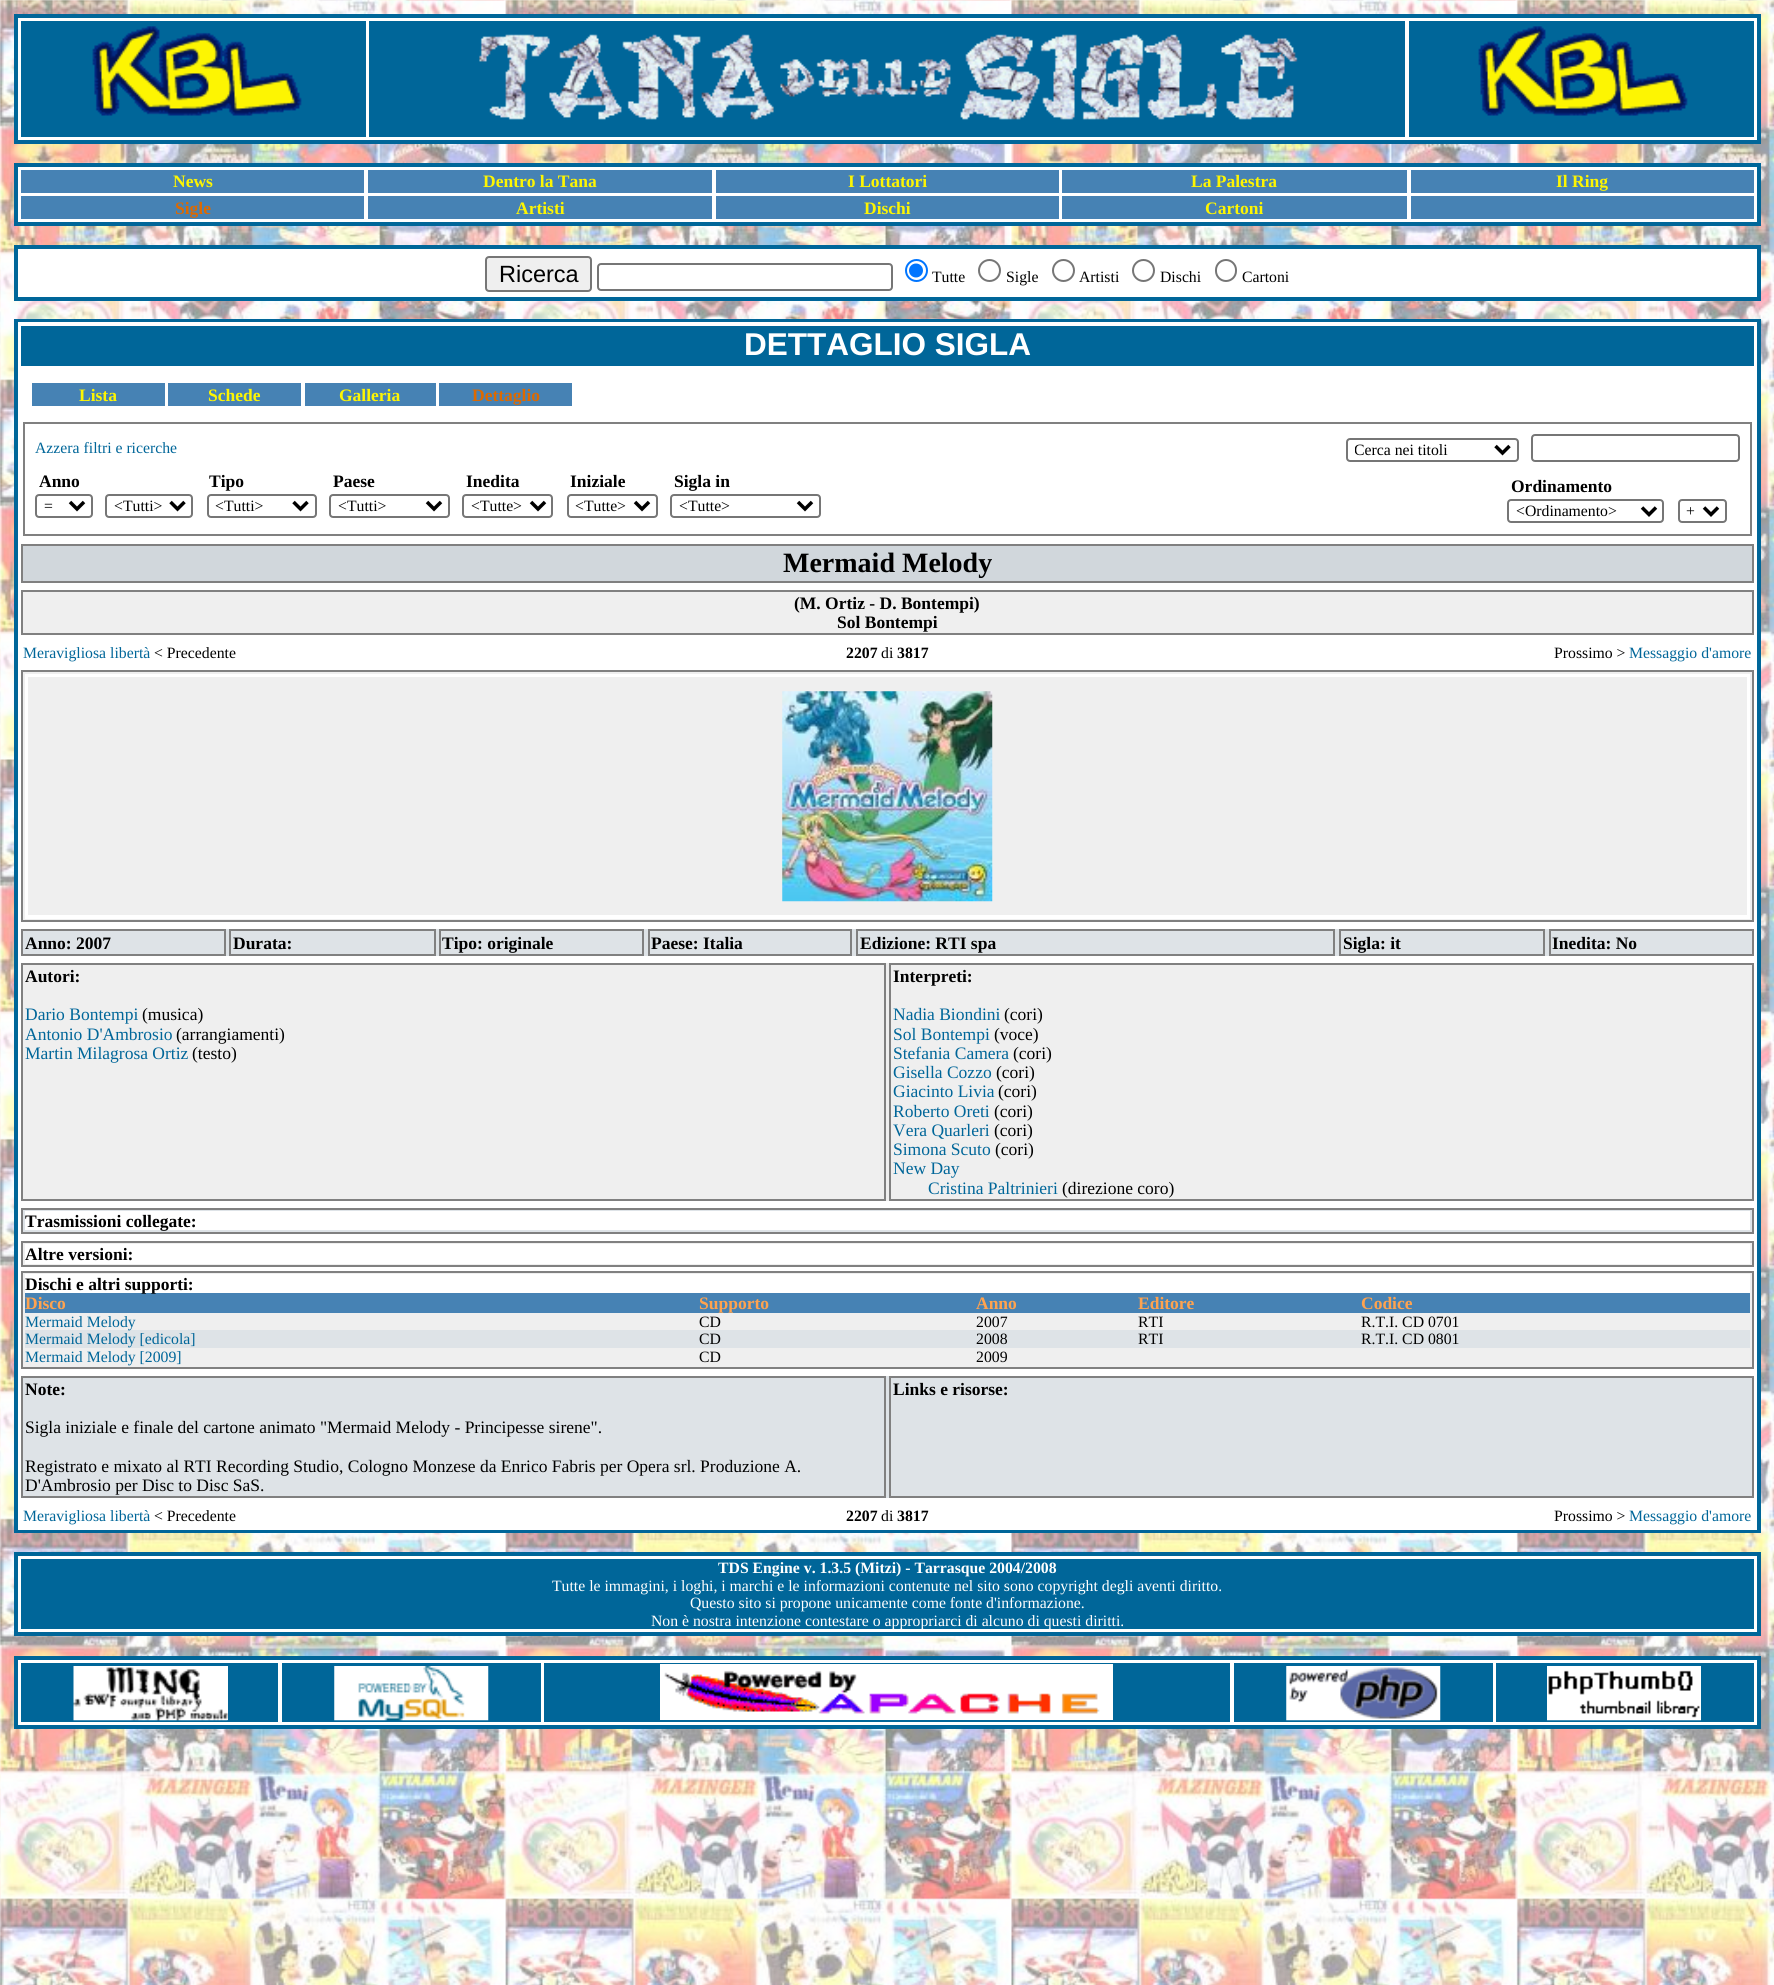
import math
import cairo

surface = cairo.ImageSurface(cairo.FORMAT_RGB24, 1774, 1985)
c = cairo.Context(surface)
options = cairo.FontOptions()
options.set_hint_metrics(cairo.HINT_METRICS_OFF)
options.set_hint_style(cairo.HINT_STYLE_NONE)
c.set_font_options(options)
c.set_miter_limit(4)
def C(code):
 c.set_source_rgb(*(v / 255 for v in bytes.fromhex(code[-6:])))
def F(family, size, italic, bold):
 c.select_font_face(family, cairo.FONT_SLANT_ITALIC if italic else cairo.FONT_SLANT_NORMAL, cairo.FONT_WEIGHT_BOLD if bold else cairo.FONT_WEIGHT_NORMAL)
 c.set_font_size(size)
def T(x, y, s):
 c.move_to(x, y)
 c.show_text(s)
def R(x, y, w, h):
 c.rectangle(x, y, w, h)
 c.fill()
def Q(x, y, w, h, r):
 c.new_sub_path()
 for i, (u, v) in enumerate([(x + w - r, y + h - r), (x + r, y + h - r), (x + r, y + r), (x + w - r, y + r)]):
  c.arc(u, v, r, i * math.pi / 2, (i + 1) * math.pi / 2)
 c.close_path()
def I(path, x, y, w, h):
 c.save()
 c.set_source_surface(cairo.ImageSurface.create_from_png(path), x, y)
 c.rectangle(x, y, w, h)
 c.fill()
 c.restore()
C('ffffff')
c.paint()
I('1.png',0,0,1774,1985)
C('ffffff')
c.rectangle(16,16,1743,126)
c.fill_preserve()
C('006699')
c.set_line_width(4)
c.stroke()
R(21,21,345,116)
I('2.png',92,26,210,90)
R(369,21,1036,116)
I('3.png',479,34,819,86)
R(1409,21,345,116)
I('4.png',1478,26,210,90)
C('ffffff')
c.rectangle(16,165,1743,59)
c.fill_preserve()
C('006699')
c.stroke()
C('4682b4')
R(21,170,343,23)
F('Liberation Serif',17.5,0,1)
C('fdf502')
T(173,187,'News')
C('4682b4')
R(368,170,344,23)
C('fdf502')
T(483,187,'Dentro la Tana')
C('4682b4')
R(716,170,343,23)
C('fdf502')
T(848,187,'I Lottatori')
C('4682b4')
R(1062,170,345,23)
C('fdf502')
T(1191,187,'La Palestra')
C('4682b4')
R(1411,170,343,23)
C('fdf502')
T(1556,187,'Il Ring')
C('4682b4')
R(21,196,343,23)
C('dd6900')
T(175,214,'Sigle')
C('4682b4')
R(368,196,344,23)
C('fdf502')
T(516,214,'Artisti')
C('4682b4')
R(716,196,343,23)
C('fdf502')
T(864,214,'Dischi')
C('4682b4')
R(1062,196,345,23)
C('fdf502')
T(1205,214,'Cartoni')
C('4682b4')
R(1411,196,343,23)
C('ffffff')
c.rectangle(16,247,1743,52)
c.fill_preserve()
C('006699')
c.stroke()
C('efefef')
Q(486,257,105,34,3)
c.fill_preserve()
C('767676')
c.set_line_width(2)
c.stroke()
F('Liberation Sans',23.5,0,0)
C('000000')
T(499,282,'Ricerca')
Q(598,264,294,26,3)
C('767676')
c.stroke()
c.arc(916.5,270.5,10.5,0,2 * math.pi)
C('0075ff')
c.stroke()
c.arc(916,270.5,7,0,2 * math.pi)
c.fill()
F('Liberation Serif',15.75,0,0)
C('000000')
T(932,282,'Tutte')
c.new_path()
c.arc(989.5,270.5,10.5,0,2 * math.pi)
C('767676')
c.stroke()
C('000000')
T(1006,282,'Sigle')
c.new_path()
c.arc(1063.5,270.5,10.5,0,2 * math.pi)
C('767676')
c.stroke()
C('000000')
T(1079,282,'Artisti')
c.new_path()
c.arc(1143.5,270.5,10.5,0,2 * math.pi)
C('767676')
c.stroke()
C('000000')
T(1160,282,'Dischi')
Q(1216,260,20,21,10)
C('767676')
c.stroke()
C('000000')
T(1242,282,'Cartoni')
C('ffffff')
R(18,369,1739,1133)
c.rectangle(16,321,1743,1210)
C('006699')
c.set_line_width(4)
c.stroke()
C('ffffff')
R(18,322,1739,47)
C('006699')
R(21,326,1733,40)
F('Liberation Sans',31.5,0,1)
C('ffffff')
T(744,355,'DETTAGLIO SIGLA')
C('4682b4')
R(32,383,133,23)
F('Liberation Serif',17.5,0,1)
C('fdf502')
T(79,401,'Lista')
C('4682b4')
R(168,383,133,23)
C('fdf502')
T(208,401,'Schede')
C('4682b4')
R(305,383,131,23)
C('fdf502')
T(339,401,'Galleria')
C('4682b4')
R(439,383,133,23)
C('dd6900')
T(472,401,'Dettaglio')
c.rectangle(24,423,1727,112)
C('808080')
c.set_line_width(2)
c.stroke()
F('Liberation Serif',15.75,0,0)
C('006699')
T(35,453,'Azzera filtri e ricerche')
F('Liberation Serif',17.5,0,1)
C('000000')
T(39,487,'Anno')
Q(36,495,56,22,3)
C('767676')
c.stroke()
c.new_path()
c.move_to(70,502)
c.line_to(77,509)
c.line_to(84,502)
C('000000')
c.set_line_width(3.5)
c.stroke()
F('Liberation Serif',15.75,0,0)
T(44,511,'=')
Q(106,495,86,22,3)
C('767676')
c.set_line_width(2)
c.stroke()
c.new_path()
c.move_to(170.5,502)
c.line_to(177.5,509)
c.line_to(184.5,502)
C('000000')
c.set_line_width(3.5)
c.stroke()
T(114,511,'<Tutti>')
F('Liberation Serif',17.5,0,1)
T(209,487,'Tipo')
Q(208,495,108,22,3)
C('767676')
c.set_line_width(2)
c.stroke()
c.new_path()
c.move_to(293.5,502)
c.line_to(300.5,509)
c.line_to(307.5,502)
C('000000')
c.set_line_width(3.5)
c.stroke()
F('Liberation Serif',15.75,0,0)
T(215,511,'<Tutti>')
F('Liberation Serif',17.5,0,1)
T(333,487,'Paese')
Q(330,495,119,22,3)
C('767676')
c.set_line_width(2)
c.stroke()
c.new_path()
c.move_to(427,502)
c.line_to(434,509)
c.line_to(441,502)
C('000000')
c.set_line_width(3.5)
c.stroke()
F('Liberation Serif',15.75,0,0)
T(338,511,'<Tutti>')
F('Liberation Serif',17.5,0,1)
T(466,487,'Inedita')
Q(463,495,89,22,3)
C('767676')
c.set_line_width(2)
c.stroke()
c.new_path()
c.move_to(531,502)
c.line_to(538,509)
c.line_to(545,502)
C('000000')
c.set_line_width(3.5)
c.stroke()
F('Liberation Serif',15.75,0,0)
T(471,511,'<Tutte>')
F('Liberation Serif',17.5,0,1)
T(570,487,'Iniziale')
Q(568,495,89,22,3)
C('767676')
c.set_line_width(2)
c.stroke()
c.new_path()
c.move_to(635,502)
c.line_to(642,509)
c.line_to(649,502)
C('000000')
c.set_line_width(3.5)
c.stroke()
F('Liberation Serif',15.75,0,0)
T(575,511,'<Tutte>')
F('Liberation Serif',17.5,0,1)
T(674,487,'Sigla in')
Q(671,495,149,22,3)
C('767676')
c.set_line_width(2)
c.stroke()
c.new_path()
c.move_to(798,502)
c.line_to(805,509)
c.line_to(812,502)
C('000000')
c.set_line_width(3.5)
c.stroke()
F('Liberation Serif',15.75,0,0)
T(679,511,'<Tutte>')
Q(1347,439,171,22,3)
C('767676')
c.set_line_width(2)
c.stroke()
c.new_path()
c.move_to(1495.5,446)
c.line_to(1502.5,453)
c.line_to(1509.5,446)
C('000000')
c.set_line_width(3.5)
c.stroke()
c.save()
c.rectangle(1355,439,134,21)
c.clip()
T(1354,455,'Cerca nei titoli')
c.restore()
Q(1532,435,207,26,3)
C('767676')
c.set_line_width(2)
c.stroke()
F('Liberation Serif',17.5,0,1)
C('000000')
T(1511,492,'Ordinamento')
Q(1508,500,155,22,3)
C('767676')
c.stroke()
c.new_path()
c.move_to(1642,507.5)
c.line_to(1649,514.5)
c.line_to(1656,507.5)
C('000000')
c.set_line_width(3.5)
c.stroke()
F('Liberation Serif',15.75,0,0)
T(1516,516,'<Ordinamento>')
Q(1679,500,47,22,3)
C('767676')
c.set_line_width(2)
c.stroke()
c.new_path()
c.move_to(1704,507.5)
c.line_to(1711,514.5)
c.line_to(1718,507.5)
C('000000')
c.set_line_width(3.5)
c.stroke()
T(1686,516,'+')
C('d1d7dc')
c.rectangle(22,545,1731,37)
c.fill_preserve()
C('808080')
c.set_line_width(2)
c.stroke()
F('Liberation Serif',28,0,1)
C('000000')
T(783,572,'Mermaid Melody')
C('efefef')
c.rectangle(22,591,1731,43)
c.fill_preserve()
C('808080')
c.stroke()
F('Liberation Serif',17.5,0,1)
C('000000')
T(794,609,'(M. Ortiz - D. Bontempi)')
T(837,628,'Sol Bontempi')
F('Liberation Serif',15.75,0,0)
C('006699')
T(23,658,'Meravigliosa libertà')
C('000000')
T(154,658,'< Precedente')
F('Liberation Serif',15.75,0,1)
T(846,658,'2207')
F('Liberation Serif',15.75,0,0)
T(881,658,'di')
F('Liberation Serif',15.75,0,1)
T(897,658,'3817')
F('Liberation Serif',15.75,0,0)
T(1554,658,'Prossimo >')
C('006699')
T(1629,658,'Messaggio d\'amore')
C('efefef')
c.rectangle(22,671,1731,250)
c.fill_preserve()
C('808080')
c.stroke()
C('ffffff')
R(25,674,1725,245)
C('efefef')
R(28,677,1719,238)
I('5.png',782,691,211,211)
C('dee3e7')
R(23,929,1729,27)
c.rectangle(22,930,203,25)
C('808080')
c.stroke()
F('Liberation Serif',17.5,0,1)
C('000000')
T(25,949,'Anno: 2007')
c.rectangle(230,930,205,25)
C('808080')
c.stroke()
C('000000')
T(233,949,'Durata:')
c.rectangle(440,930,203,25)
C('808080')
c.stroke()
C('000000')
T(442,949,'Tipo: originale')
c.rectangle(649,930,202,25)
C('808080')
c.stroke()
C('000000')
T(651,949,'Paese: Italia')
c.rectangle(857,930,477,25)
C('808080')
c.stroke()
C('000000')
T(860,949,'Edizione: RTI spa')
c.rectangle(1340,930,204,25)
C('808080')
c.stroke()
C('000000')
T(1343,949,'Sigla: it')
c.rectangle(1550,930,203,25)
C('808080')
c.stroke()
C('000000')
T(1552,949,'Inedita: No')
C('efefef')
R(23,963,1729,238)
c.rectangle(22,964,863,236)
C('808080')
c.stroke()
C('000000')
T(25,982,'Autori:')
F('Liberation Serif',17.5,0,0)
C('006699')
T(25,1020,'Dario Bontempi')
C('000000')
T(142,1020,'(musica)')
C('006699')
T(25,1040,'Antonio D\'Ambrosio')
C('000000')
T(176,1040,'(arrangiamenti)')
C('006699')
T(25,1059,'Martin Milagrosa Ortiz')
C('000000')
T(192,1059,'(testo)')
c.rectangle(890,964,863,236)
C('808080')
c.stroke()
F('Liberation Serif',17.5,0,1)
C('000000')
T(893,982,'Interpreti:')
F('Liberation Serif',17.5,0,0)
C('006699')
T(893,1020,'Nadia Biondini')
C('000000')
T(1004,1020,'(cori)')
C('006699')
T(893,1040,'Sol Bontempi')
C('000000')
T(994,1040,'(voce)')
C('006699')
T(893,1059,'Stefania Camera')
C('000000')
T(1013,1059,'(cori)')
C('006699')
T(893,1078,'Gisella Cozzo')
C('000000')
T(996,1078,'(cori)')
C('006699')
T(893,1097,'Giacinto Livia')
C('000000')
T(998,1097,'(cori)')
C('006699')
T(893,1117,'Roberto Oreti')
C('000000')
T(994,1117,'(cori)')
C('006699')
T(893,1136,'Vera Quarleri')
C('000000')
T(994,1136,'(cori)')
C('006699')
T(893,1155,'Simona Scuto')
C('000000')
T(995,1155,'(cori)')
C('006699')
T(893,1174,'New Day')
T(928,1194,'Cristina Paltrinieri')
C('000000')
T(1062,1194,'(direzione coro)')
C('dee3e7')
c.rectangle(22,1209,1731,24)
c.fill_preserve()
C('808080')
c.stroke()
C('ffffff')
R(25,1211,1725,19)
F('Liberation Serif',17.5,0,1)
C('000000')
T(25,1227,'Trasmissioni collegate:')
C('efefef')
c.rectangle(22,1242,1731,24)
c.fill_preserve()
C('808080')
c.stroke()
C('ffffff')
R(25,1244,1725,20)
C('000000')
T(25,1260,'Altre versioni:')
C('efefef')
c.rectangle(22,1272,1731,96)
c.fill_preserve()
C('808080')
c.stroke()
C('ffffff')
R(25,1274,1725,19)
C('4682b4')
R(25,1293,1725,20)
C('000000')
T(25,1290,'Dischi e altri supporti:')
C('ffa34f')
T(25,1309,'Disco')
T(699,1309,'Supporto')
T(976,1309,'Anno')
T(1138,1309,'Editore')
T(1361,1309,'Codice')
C('dee3e7')
R(25,1330,1725,18)
F('Liberation Serif',15.75,0,0)
C('006699')
T(25,1327,'Mermaid Melody')
C('000000')
T(699,1327,'CD')
T(976,1327,'2007')
T(1138,1327,'RTI')
T(1361,1327,'R.T.I. CD 0701')
C('006699')
T(25,1344,'Mermaid Melody [edicola]')
C('000000')
T(699,1344,'CD')
T(976,1344,'2008')
T(1138,1344,'RTI')
T(1361,1344,'R.T.I. CD 0801')
C('006699')
T(25,1362,'Mermaid Melody [2009]')
C('000000')
T(699,1362,'CD')
T(976,1362,'2009')
C('dee3e7')
R(23,1376,1729,122)
c.rectangle(22,1377,863,120)
C('808080')
c.stroke()
F('Liberation Serif',17.5,0,1)
C('000000')
T(25,1395,'Note:')
F('Liberation Serif',17.5,0,0)
T(25,1433,'Sigla iniziale e finale del cartone animato "Mermaid Melody - Principesse sirene".')
T(25,1472,'Registrato e mixato al RTI Recording Studio, Cologno Monzese da Enrico Fabris per Opera srl. Produzione A.')
T(25,1491,'D\'Ambrosio per Disc to Disc SaS.')
c.rectangle(890,1377,863,120)
C('808080')
c.stroke()
F('Liberation Serif',17.5,0,1)
C('000000')
T(893,1395,'Links e risorse:')
C('ffffff')
R(18,1502,1739,28)
F('Liberation Serif',15.75,0,0)
C('006699')
T(23,1521,'Meravigliosa libertà')
C('000000')
T(154,1521,'< Precedente')
F('Liberation Serif',15.75,0,1)
T(846,1521,'2207')
F('Liberation Serif',15.75,0,0)
T(881,1521,'di')
F('Liberation Serif',15.75,0,1)
T(897,1521,'3817')
F('Liberation Serif',15.75,0,0)
T(1554,1521,'Prossimo >')
C('006699')
T(1629,1521,'Messaggio d\'amore')
C('ffffff')
c.rectangle(16,1554,1743,80)
c.fill_preserve()
C('006699')
c.set_line_width(4)
c.stroke()
R(21,1559,1733,70)
F('Liberation Serif',15.75,0,1)
C('ffffff')
T(718,1573,'TDS Engine v. 1.3.5 (Mitzi) - Tarrasque 2004/2008')
F('Liberation Serif',15.75,0,0)
T(552,1591,'Tutte le immagini, i loghi, i marchi e le informazioni contenute nel sito sono copyright degli aventi diritto.')
T(690,1608,'Questo sito si propone unicamente come fonte d\'informazione.')
T(651,1626,'Non è nostra intenzione contestare o appropriarci di alcuno di questi diritti.')
c.rectangle(16,1658,1743,69)
c.fill_preserve()
C('006699')
c.stroke()
R(21,1663,257,59)
C('ffffff')
R(227,1666,1,54)
I('6.png',73,1666,155,55)
C('006699')
R(282,1663,259,59)
I('7.png',334,1666,155,55)
R(544,1663,686,59)
C('ffffff')
R(660,1664,453,56)
I('8.png',664,1670,436,44)
C('006699')
R(1234,1663,259,59)
I('9.png',1286,1666,155,55)
R(1496,1663,258,59)
C('ffffff')
R(1547,1666,154,4)
I('10.png',1547,1670,154,51)
surface.write_to_png('o.png')
